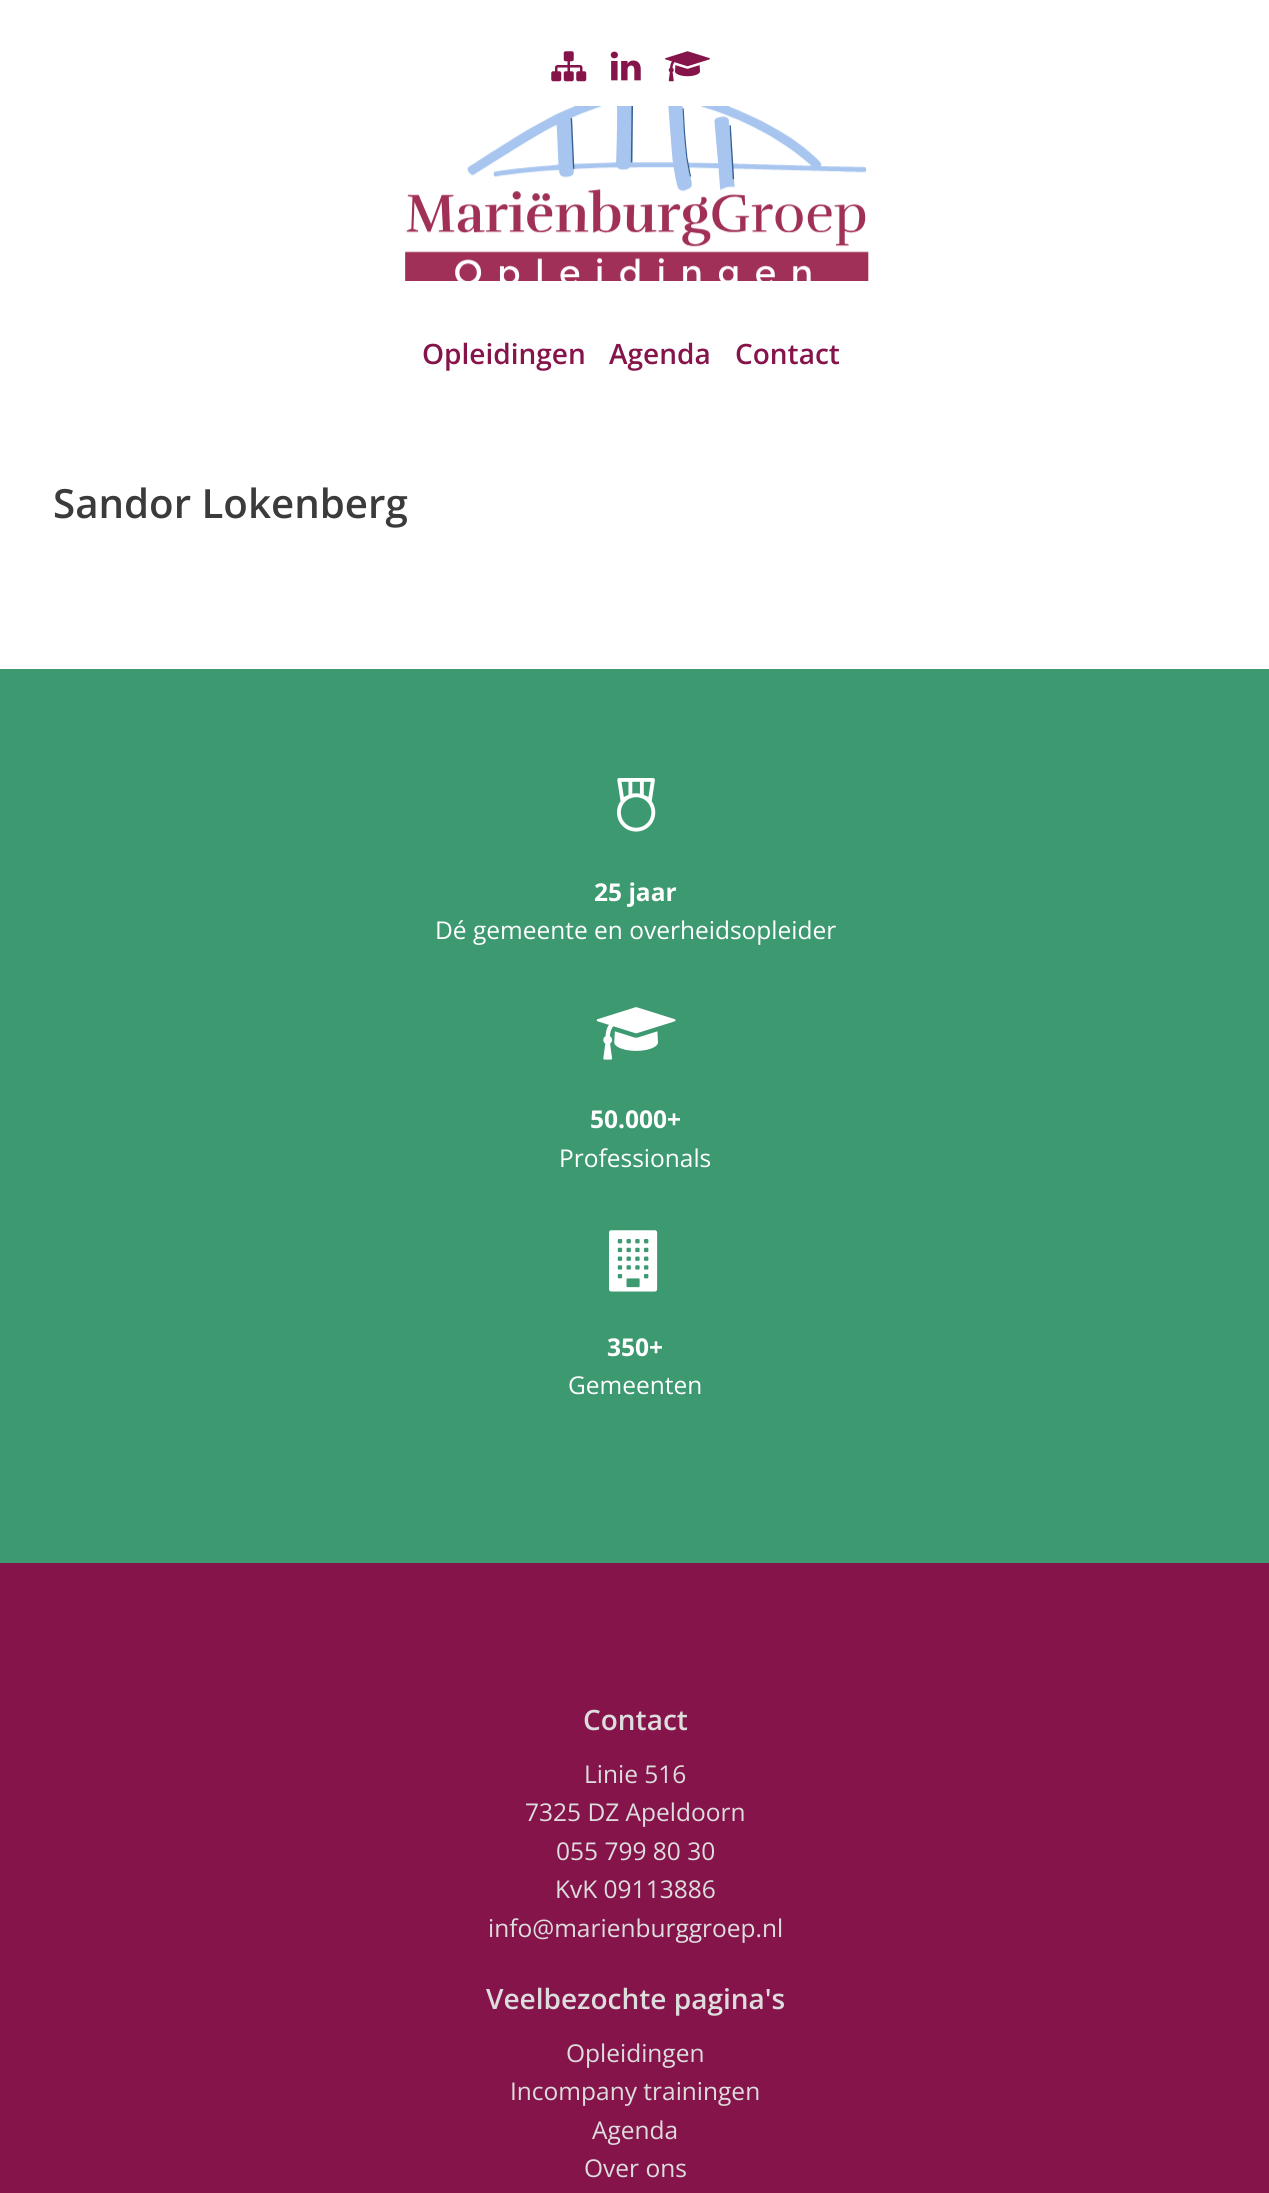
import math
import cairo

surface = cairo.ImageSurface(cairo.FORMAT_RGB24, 1269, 2193)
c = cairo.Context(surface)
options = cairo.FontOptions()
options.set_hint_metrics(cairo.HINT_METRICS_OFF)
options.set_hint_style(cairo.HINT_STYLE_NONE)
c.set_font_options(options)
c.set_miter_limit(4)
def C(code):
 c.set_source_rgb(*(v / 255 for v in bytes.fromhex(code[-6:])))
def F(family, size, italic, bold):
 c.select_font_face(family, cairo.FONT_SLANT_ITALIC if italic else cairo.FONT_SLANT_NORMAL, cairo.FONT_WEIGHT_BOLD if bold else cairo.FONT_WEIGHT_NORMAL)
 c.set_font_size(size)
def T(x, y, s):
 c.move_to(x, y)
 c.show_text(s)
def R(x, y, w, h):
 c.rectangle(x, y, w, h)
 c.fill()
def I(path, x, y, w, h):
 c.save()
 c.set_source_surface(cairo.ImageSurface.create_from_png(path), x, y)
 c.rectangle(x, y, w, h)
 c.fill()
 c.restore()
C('ffffff')
c.paint()
I('1.png',551,51,36,31)
I('2.png',610,51,31,30)
I('3.png',665,51,45,31)
I('4.png',405,106,464,175)
F('Open Sans SemiBold',28,0,0)
C('85144b')
T(422,364,'Opleidingen')
T(609,364,'Agenda')
T(735,364,'Contact')
F('Open Sans SemiBold',40.25,0,0)
C('3b3b3b')
T(53,518,'Sandor Lokenberg')
C('3d9970')
R(0,669,1269,894)
I('5.png',617,778,39,54)
F('Open Sans',24.5,0,1)
C('ffffff')
T(594,901,'25 jaar')
F('Open Sans',24.5,0,0)
T(435,939,'Dé gemeente en overheidsopleider')
I('6.png',596,1007,80,53)
F('Open Sans',24.5,0,1)
T(590,1128,'50.000+')
F('Open Sans',24.5,0,0)
T(559,1167,'Professionals')
I('7.png',609,1230,49,62)
F('Open Sans',24.5,0,1)
T(607,1356,'350+')
F('Open Sans',24.5,0,0)
T(568,1394,'Gemeenten')
C('85144b')
R(0,1563,1269,630)
F('Open Sans SemiBold',28,0,0)
C('dddddd')
T(583,1730,'Contact')
F('Open Sans',24.5,0,0)
T(584,1783,'Linie 516')
T(525,1821,'7325 DZ Apeldoorn')
T(556,1860,'055 799 80 30')
T(555,1898,'KvK 09113886')
T(488,1937,'info@marienburggroep.nl')
F('Open Sans SemiBold',28,0,0)
T(486,2009,'Veelbezochte pagina\'s')
F('Open Sans',24.5,0,0)
T(566,2062,'Opleidingen')
T(510,2100,'Incompany trainingen')
T(592,2139,'Agenda')
T(584,2177,'Over ons')
surface.write_to_png('o.png')
